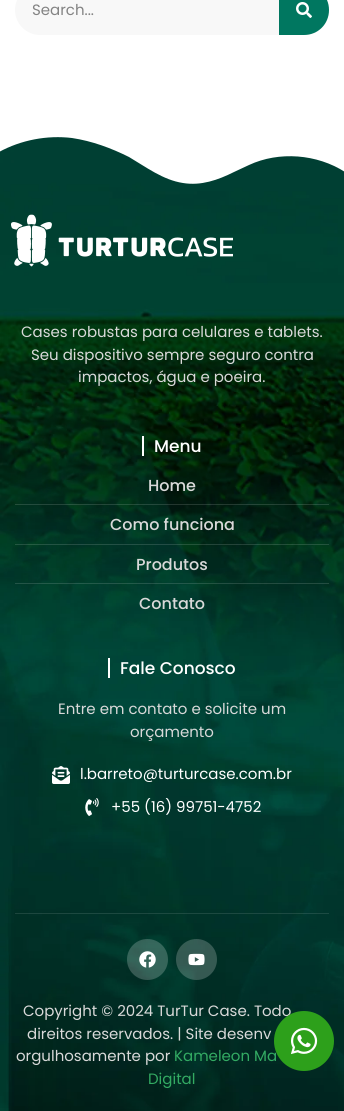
import math
import cairo

surface = cairo.ImageSurface(cairo.FORMAT_RGB24, 344, 1111)
c = cairo.Context(surface)
options = cairo.FontOptions()
options.set_hint_metrics(cairo.HINT_METRICS_OFF)
options.set_hint_style(cairo.HINT_STYLE_NONE)
c.set_font_options(options)
c.set_miter_limit(4)
def C(code):
 c.set_source_rgb(*(v / 255 for v in bytes.fromhex(code[-6:])))
def F(family, size, italic, bold):
 c.select_font_face(family, cairo.FONT_SLANT_ITALIC if italic else cairo.FONT_SLANT_NORMAL, cairo.FONT_WEIGHT_BOLD if bold else cairo.FONT_WEIGHT_NORMAL)
 c.set_font_size(size)
def T(x, y, s):
 c.move_to(x, y)
 c.show_text(s)
def R(x, y, w, h):
 c.rectangle(x, y, w, h)
 c.fill()
def Q(x, y, w, h, r):
 c.new_sub_path()
 for i, (u, v) in enumerate([(x + w - r, y + h - r), (x + r, y + h - r), (x + r, y + r), (x + w - r, y + r)]):
  c.arc(u, v, r, i * math.pi / 2, (i + 1) * math.pi / 2)
 c.close_path()
def I(path, x, y, w, h):
 c.save()
 c.set_source_surface(cairo.ImageSurface.create_from_png(path), x, y)
 c.rectangle(x, y, w, h)
 c.fill()
 c.restore()
C('ffffff')
c.paint()
C('f8f8f8')
Q(15,-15,314,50,25)
c.fill()
F('Poppins',15,0,0)
C('838383')
T(32,15,'Search...')
C('007760')
c.new_path()
c.move_to(279,-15)
c.line_to(304,-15)
c.curve_to(318,-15,329,-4,329,10)
c.curve_to(329,24,318,35,304,35)
c.line_to(279,35)
c.close_path()
c.fill()
I('1.png',296,2,16,16)
I('2.png',0,137,344,974)
C('ffffff')
c.new_path()
c.move_to(72,138)
c.curve_to(92,141,111,148,129,157)
c.curve_to(146,167,163,180,183,183)
c.curve_to(201,186,218,180,234,172)
c.line_to(249,165)
c.curve_to(279,151,317,154,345,172)
c.line_to(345,135)
c.line_to(-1,135)
c.line_to(-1,152)
c.curve_to(21,140,47,135,72,138)
c.close_path()
c.fill()
c.set_source_rgba(1,1,1,0.11)
R(15,913,314,1)
I('3.png',11,214,222,53)
C('d9d9d9')
T(21,337,'Cases robustas para celulares e tablets.')
T(31,360,'Seu dispositivo sempre seguro contra')
T(78,382,'impactos, água e poeira.')
C('ffffff')
R(142,436,2,20)
F('Poppins Medium',17,0,0)
T(154,452,'Menu')
F('Poppins Medium',16,0,0)
C('d9d9d9')
T(148,491,'Home')
c.set_source_rgba(1,1,1,0.14)
R(15,504,314,1)
C('d9d9d9')
T(110,530,'Como funciona')
c.set_source_rgba(1,1,1,0.14)
R(15,544,314,1)
C('d9d9d9')
T(136,570,'Produtos')
c.set_source_rgba(1,1,1,0.14)
R(15,583,314,1)
C('d9d9d9')
T(139,609,'Contato')
C('ffffff')
R(108,658,2,20)
F('Poppins Medium',17,0,0)
T(120,674,'Fale Conosco')
F('Poppins',15,0,0)
C('d9d9d9')
T(58,714,'Entre em contato e solicite um')
T(130,737,'orçamento')
I('4.png',52,766,18,18)
C('ffffff')
T(80,779,'l.barreto@turturcase.com.br')
I('5.png',85,798,14,18)
T(111,812,'+55 (16) 99751-4752')
c.set_source_rgba(1,1,1,0.21)
c.new_path()
c.arc(147.5,959.5,20.5,0,2 * math.pi)
c.fill()
I('6.png',139,951,17,17)
c.arc(196.5,959.5,20.5,0,2 * math.pi)
c.fill()
I('7.png',188,953,17,13)
C('d9d9d9')
T(23,1016,'Copyright © 2024 TurTur Case. Todo')
T(27,1039,'direitos reservados. | Site desenv')
T(16,1061,'orgulhosamente por')
C('33ab63')
T(174,1061,'Kameleon Ma')
T(148,1084,'Digital')
C('2da01b')
c.new_path()
c.arc(304,1041,30,0,2 * math.pi)
c.fill()
I('8.png',291,1027,27,27)
surface.write_to_png('o.png')
